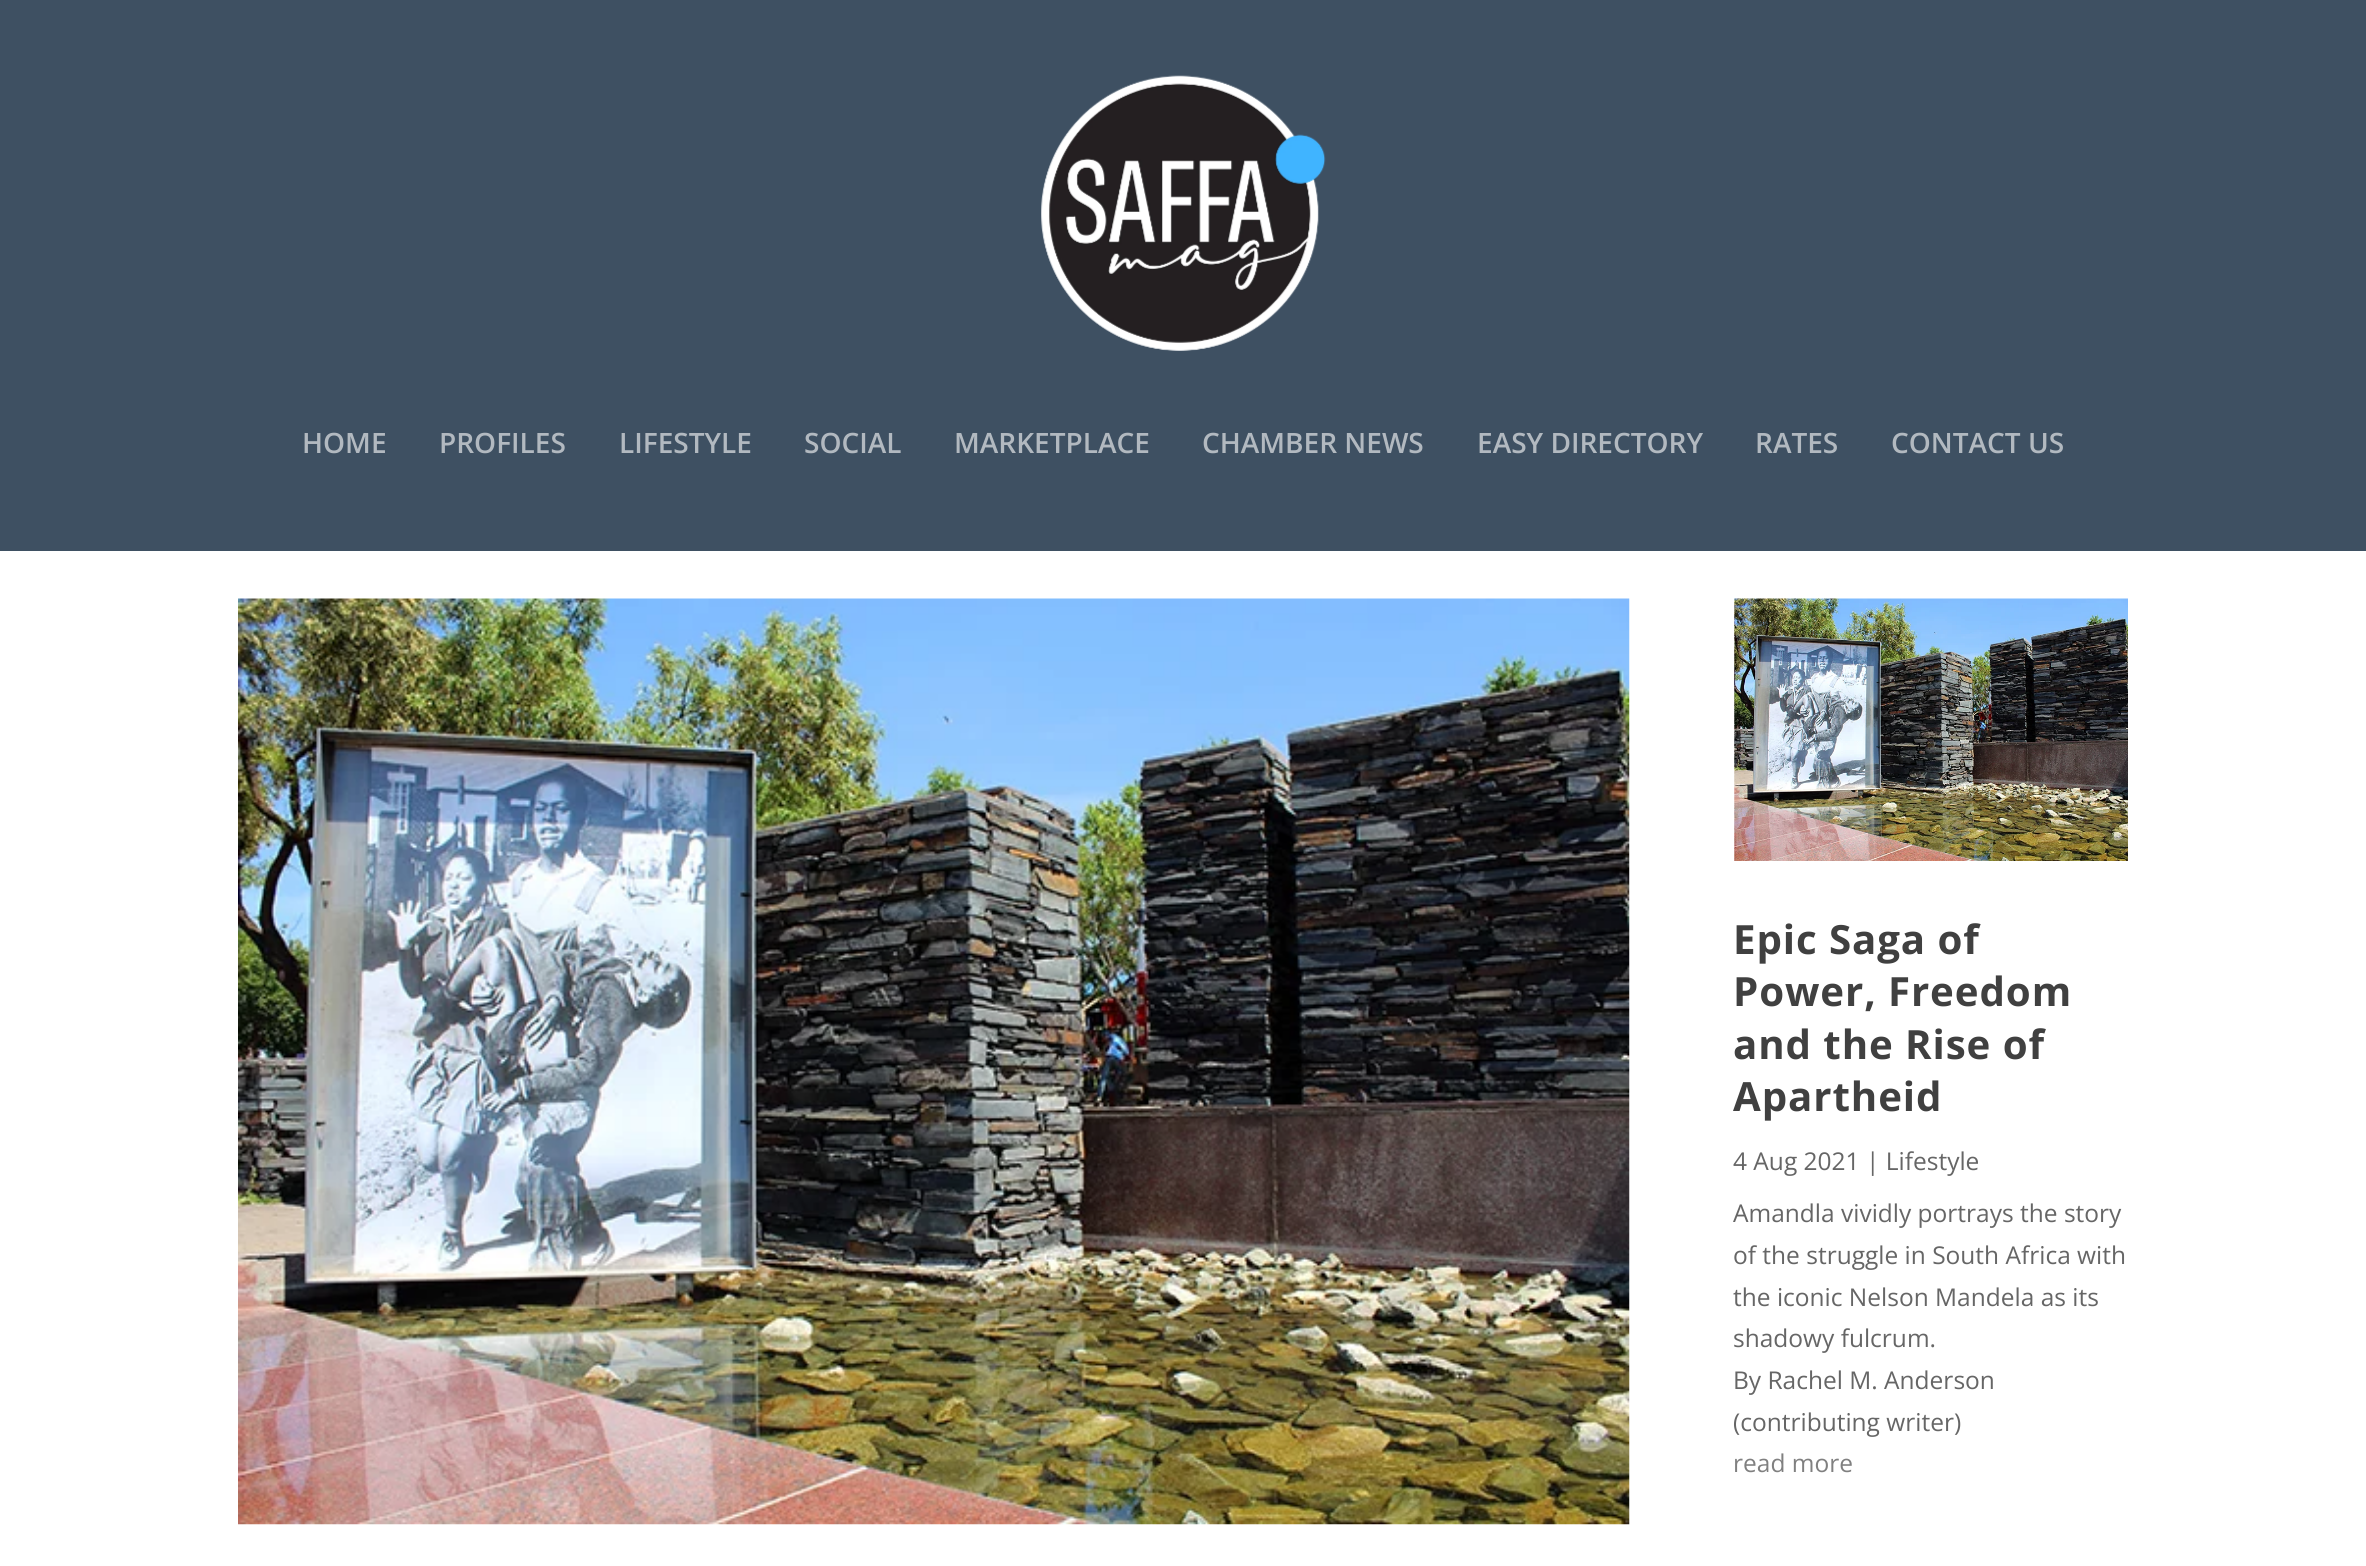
import math
import cairo

surface = cairo.ImageSurface(cairo.FORMAT_RGB24, 2366, 1566)
c = cairo.Context(surface)
options = cairo.FontOptions()
options.set_hint_metrics(cairo.HINT_METRICS_OFF)
options.set_hint_style(cairo.HINT_STYLE_NONE)
c.set_font_options(options)
c.set_miter_limit(4)
def C(code):
 c.set_source_rgb(*(v / 255 for v in bytes.fromhex(code[-6:])))
def F(family, size, italic, bold):
 c.select_font_face(family, cairo.FONT_SLANT_ITALIC if italic else cairo.FONT_SLANT_NORMAL, cairo.FONT_WEIGHT_BOLD if bold else cairo.FONT_WEIGHT_NORMAL)
 c.set_font_size(size)
def T(x, y, s):
 c.move_to(x, y)
 c.show_text(s)
def L(x, y, s, letter, word):
 c.move_to(x, y)
 for ch in s:
  c.show_text(ch)
  c.rel_move_to(letter + word * (ch == ' '), 0)
def R(x, y, w, h):
 c.rectangle(x, y, w, h)
 c.fill()
def I(path, x, y, w, h):
 c.save()
 c.set_source_surface(cairo.ImageSurface.create_from_png(path), x, y)
 c.rectangle(x, y, w, h)
 c.fill()
 c.restore()
C('ffffff')
c.paint()
C('3e5062')
R(0,0,2366,551)
I('1.png',1041,75,285,276)
F('Open Sans SemiBold',28,0,0)
C('b2b9c0')
T(302,453,'HOME')
T(439,453,'PROFILES')
T(619,453,'LIFESTYLE')
T(804,453,'SOCIAL')
T(954,453,'MARKETPLACE')
T(1202,453,'CHAMBER NEWS')
T(1477,453,'EASY DIRECTORY')
T(1755,453,'RATES')
T(1891,453,'CONTACT US')
I('2.png',238,598,1392,927)
I('3.png',1734,598,394,263)
F('Open Sans',40.25,0,1)
C('404040')
L(1733,954,'Epic Saga of',.9,0)
L(1733,1006,'Power, Freedom',.9,0)
L(1733,1059,'and the Rise of',.9,0)
L(1733,1111,'Apartheid',.9,0)
F('Open Sans',24.5,0,0)
C('666666')
T(1733,1170,'4 Aug 2021 | Lifestyle')
T(1733,1222,'Amandla vividly portrays the story')
T(1733,1264,'of the struggle in South Africa with')
T(1733,1306,'the iconic Nelson Mandela as its')
T(1733,1347,'shadowy fulcrum.')
T(1733,1389,'By Rachel M. Anderson')
T(1733,1431,'(contributing writer)')
C('808080')
T(1733,1472,'read more')
surface.write_to_png('o.png')
